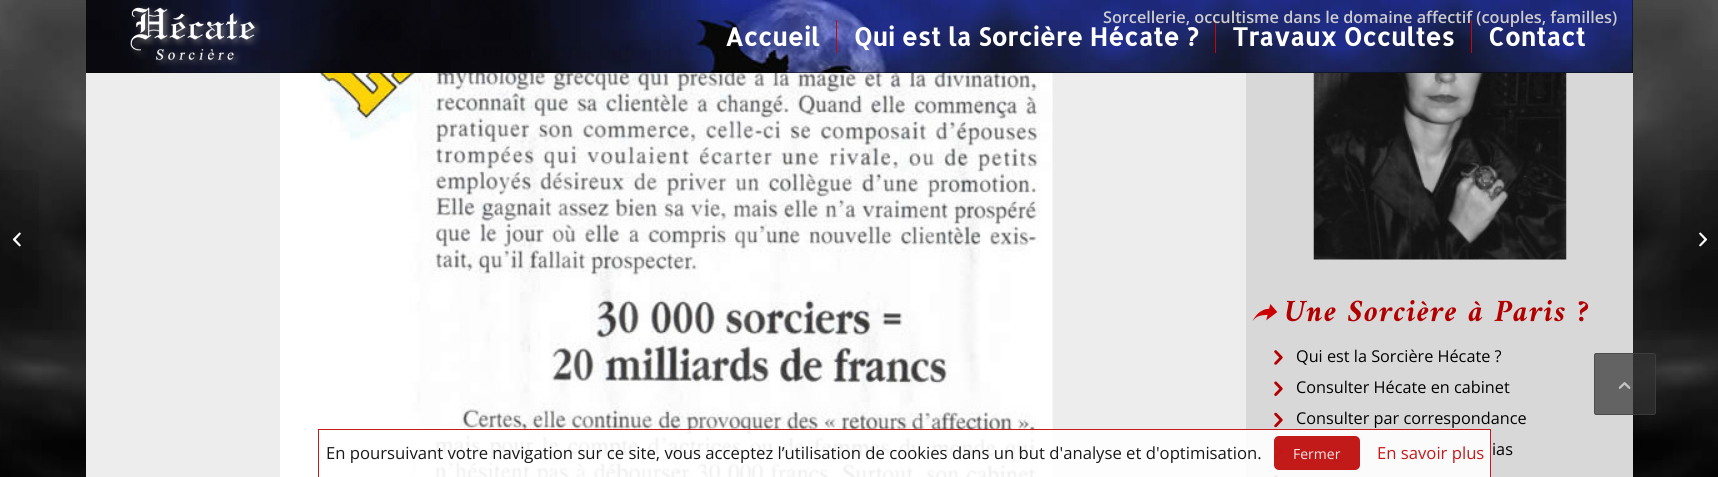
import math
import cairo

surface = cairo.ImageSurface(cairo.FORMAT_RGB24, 1718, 477)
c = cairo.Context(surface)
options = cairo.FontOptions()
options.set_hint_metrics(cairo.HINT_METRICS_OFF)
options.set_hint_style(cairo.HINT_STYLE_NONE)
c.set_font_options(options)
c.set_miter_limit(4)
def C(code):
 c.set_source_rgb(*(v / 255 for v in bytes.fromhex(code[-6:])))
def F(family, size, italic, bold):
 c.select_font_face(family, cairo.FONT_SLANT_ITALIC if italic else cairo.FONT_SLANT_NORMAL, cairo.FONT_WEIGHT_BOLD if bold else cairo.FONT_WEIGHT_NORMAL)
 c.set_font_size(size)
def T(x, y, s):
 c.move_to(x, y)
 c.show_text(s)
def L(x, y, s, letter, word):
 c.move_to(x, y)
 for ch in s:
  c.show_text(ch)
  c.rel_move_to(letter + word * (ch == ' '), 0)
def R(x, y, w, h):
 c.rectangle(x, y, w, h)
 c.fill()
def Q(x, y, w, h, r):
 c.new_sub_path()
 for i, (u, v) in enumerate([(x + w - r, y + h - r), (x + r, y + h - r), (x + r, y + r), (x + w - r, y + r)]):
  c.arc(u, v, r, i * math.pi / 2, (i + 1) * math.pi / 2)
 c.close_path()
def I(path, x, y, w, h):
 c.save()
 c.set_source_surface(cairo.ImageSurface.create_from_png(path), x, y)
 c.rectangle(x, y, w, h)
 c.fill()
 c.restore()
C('ffffff')
c.paint()
I('1.png',0,0,1718,477)
C('ededed')
R(86,0,1160,477)
I('6.png',280,0,773,477)
C('d8d8d8')
R(1246,0,387,477)
I('7.png',1313,0,254,260)
c.set_source_rgba(0,0,0,0.95)
R(86,0,1547,73)
I('2.png',86,0,1547,73)
C('c90606')
R(1215,20,1,33)
R(1471,20,1,33)
F('Open Sans SemiBold',16.25,0,0)
C('cccccc')
T(1103,23,'Sorcellerie, occultisme dans le domaine affectif (couples, familles)')
I('3.png',130,6,131,60)
F('Allerta',25,0,1)
C('ffffff')
T(725,46,'Accueil')
T(854,46,'Qui est la Sorcière Hécate ?')
C('c90606')
R(836,20,1,33)
C('ffffff')
T(1232,46,'Travaux Occultes')
T(1488,46,'Contact')
c.set_source_rgba(0,0,0,0.1)
c.new_path()
c.move_to(0,170)
c.line_to(34,170)
c.curve_to(37,170,39,172,39,175)
c.line_to(39,303)
c.curve_to(39,306,37,308,34,308)
c.line_to(0,308)
c.close_path()
c.fill()
I('4.png',12,232,9,15)
c.new_path()
c.move_to(1685,170)
c.line_to(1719,170)
c.line_to(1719,308)
c.line_to(1685,308)
c.curve_to(1682,308,1680,306,1680,303)
c.line_to(1680,175)
c.curve_to(1680,172,1682,170,1685,170)
c.close_path()
c.fill()
I('5.png',1699,232,9,15)
I('8.png',1252,304,26,17)
F('Amiri',31.25,1,1)
C('b20000')
L(1284,321,'Une Sorcière à Paris ?',1.25,0)
I('9.png',1274,350,9,15)
F('Open Sans',16.25,0,0)
C('000000')
T(1296,362,'Qui est la Sorcière Hécate ?')
I('10.png',1274,381,9,15)
T(1296,393,'Consulter Hécate en cabinet')
I('11.png',1274,412,9,16)
T(1296,424,'Consulter par correspondance')
I('12.png',1274,444,9,15)
T(1492,455,'ias')
I('13.png',1274,475,4,2)
c.set_source_rgba(0.2,0.2,0.2,0.7)
Q(1594,353,62,62,2.5)
c.fill()
Q(1594.5,353.5,61,61,2)
c.set_source_rgba(0.267,0.267,0.267,0.7)
c.set_line_width(1)
c.stroke()
I('14.png',1618,382,13,7)
c.set_source_rgba(1,1,1,0.9)
R(416,429,1075,48)
c.rectangle(318.5,429.5,1172,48)
c.set_source_rgba(0.769,0,0,0.9)
c.stroke()
F('Open Sans',16.67,0,0)
C('191919')
T(326,459,'En poursuivant votre navigation sur ce site, vous acceptez l’utilisation de cookies dans un but d\'analyse et d\'optimisation.')
c.set_source_rgba(0.737,0,0,0.9)
Q(1274,436,86,34,5)
c.fill()
F('Open Sans',14,0,0)
C('f9e8e8')
T(1293,459,'Fermer')
F('Open Sans',16.67,0,0)
C('c61919')
T(1377,459,'En savoir plus')
surface.write_to_png('o.png')
